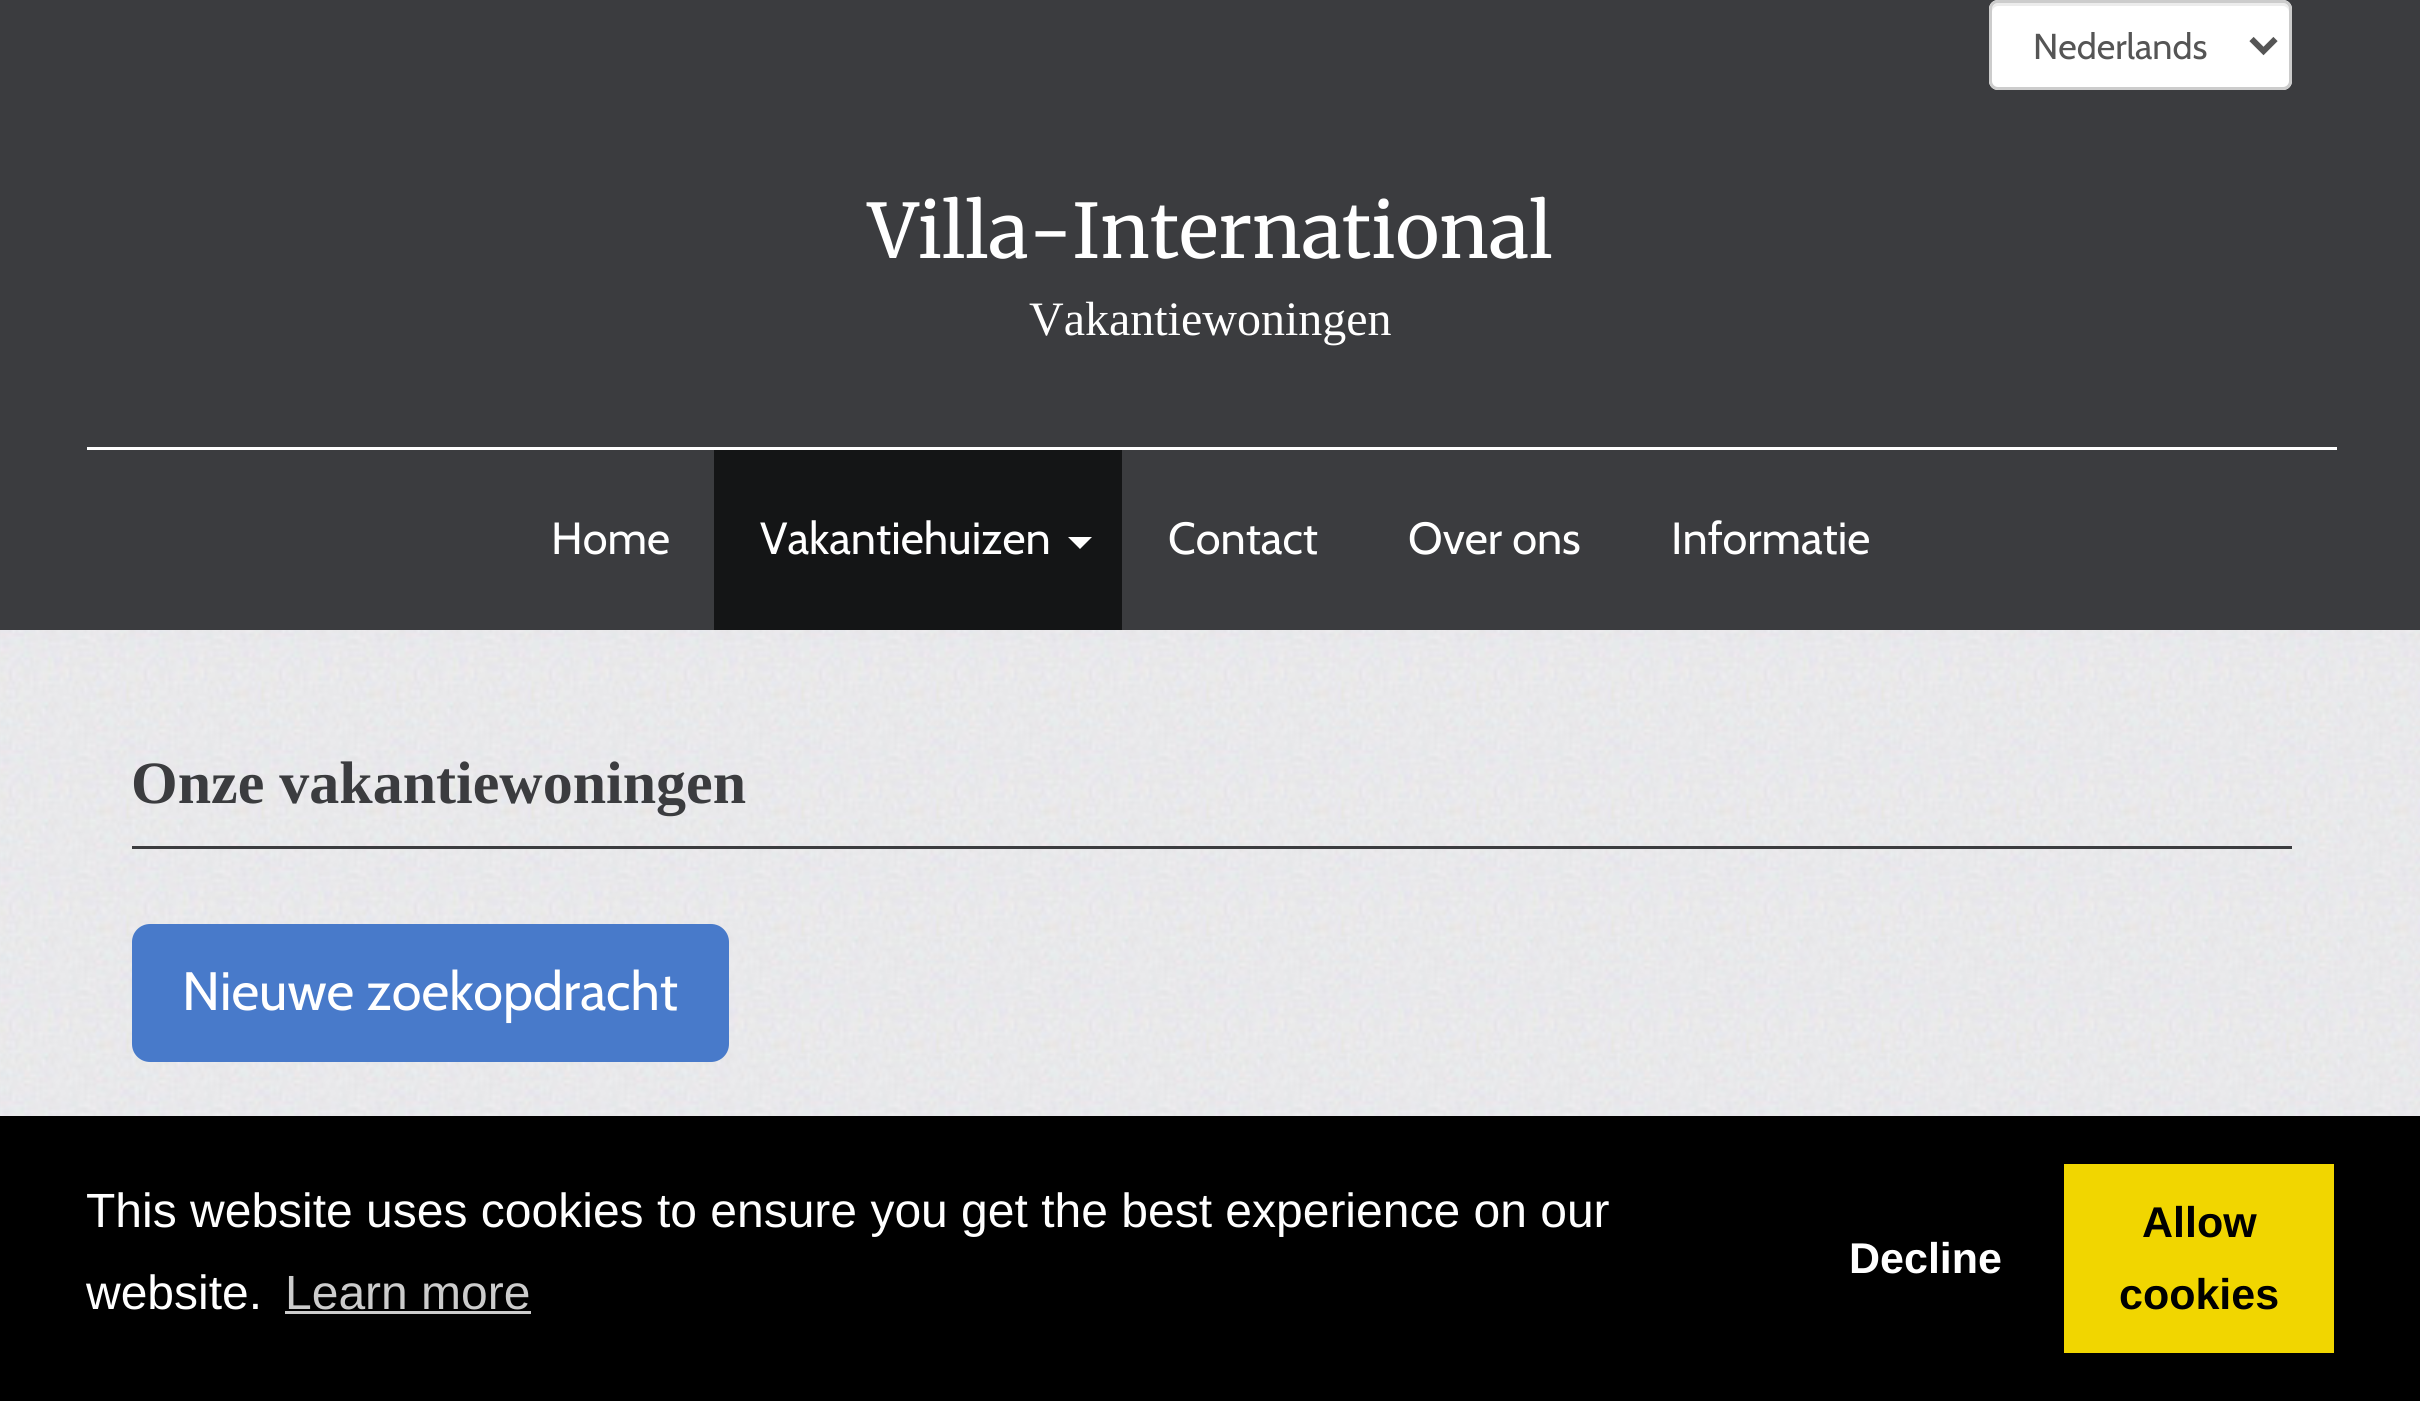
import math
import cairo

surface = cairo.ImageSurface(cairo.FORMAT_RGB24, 2420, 1401)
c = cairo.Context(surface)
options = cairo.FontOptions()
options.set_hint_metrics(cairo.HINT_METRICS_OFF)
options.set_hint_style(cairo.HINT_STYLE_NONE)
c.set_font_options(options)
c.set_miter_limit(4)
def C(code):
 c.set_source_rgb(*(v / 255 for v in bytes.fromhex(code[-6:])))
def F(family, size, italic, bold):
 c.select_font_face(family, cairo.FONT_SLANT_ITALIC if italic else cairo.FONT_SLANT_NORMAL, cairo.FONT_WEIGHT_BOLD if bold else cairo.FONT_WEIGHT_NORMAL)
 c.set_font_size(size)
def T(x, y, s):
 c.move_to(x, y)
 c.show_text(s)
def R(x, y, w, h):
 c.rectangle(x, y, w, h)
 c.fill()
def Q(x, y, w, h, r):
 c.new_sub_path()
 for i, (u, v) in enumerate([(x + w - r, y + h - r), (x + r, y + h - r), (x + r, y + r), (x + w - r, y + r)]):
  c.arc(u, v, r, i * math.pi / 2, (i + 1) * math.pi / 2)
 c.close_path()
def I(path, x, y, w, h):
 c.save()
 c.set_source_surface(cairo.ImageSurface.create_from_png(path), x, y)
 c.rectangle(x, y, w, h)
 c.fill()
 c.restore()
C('ffffff')
c.paint()
I('1.png',0,630,2420,486)
C('3b3c3f')
R(0,0,2420,630)
C('ffffff')
Q(1989,0,303,90,9)
c.fill()
C('ececec')
c.new_path()
c.move_to(1998,6)
c.line_to(2283,6)
c.curve_to(2286,6,2289,9,2289,12)
c.line_to(2289,9)
c.curve_to(2289,6,2286,3,2283,3)
c.line_to(1998,3)
c.curve_to(1995,3,1992,6,1992,9)
c.line_to(1992,12)
c.curve_to(1992,9,1995,6,1998,6)
c.close_path()
c.fill()
Q(1990.5,1.5,300,87,7.5)
C('cccccc')
c.set_line_width(3)
c.stroke()
c.new_path()
c.move_to(2251.5,39)
c.line_to(2263.5,51)
c.line_to(2275.5,39)
C('555555')
c.set_line_width(6)
c.stroke()
F('Cabin',36,0,0)
T(2033,59,'Nederlands')
F('Merriweather Light',75,0,0)
C('ffffff')
T(868,258,'Villa-International')
F('Liberation Serif',48,0,0)
T(1029,335,'Vakantiewoningen')
R(87,447,2250,3)
F('Cabin',45,0,0)
T(551,554,'Home')
C('141516')
R(714,450,408,180)
C('ffffff')
T(760,554,'Vakantiehuizen')
c.new_path()
c.move_to(1068,537)
c.line_to(1092,537)
c.line_to(1080,549)
c.close_path()
c.fill()
T(1168,554,'Contact')
T(1408,554,'Over ons')
T(1671,554,'Informatie')
C('3b3c3f')
R(132,846,2160,3)
F('Liberation Serif',60,0,1)
T(131,803,'Onze vakantiewoningen')
C('487aca')
Q(133.5,925.5,594,135,16.5)
c.fill_preserve()
c.set_line_width(3)
c.stroke()
F('Cabin',54,0,0)
C('ffffff')
T(182,1010,'Nieuwe zoekopdracht')
C('000000')
R(0,1116,2420,285)
F('Liberation Sans',48,0,0)
C('ffffff')
T(86,1227,'This website uses cookies to ensure you get the best experience on our')
T(86,1309,'website.')
C('cccccc')
T(285,1309,'Learn more')
R(285,1311,246,3)
F('Liberation Sans',43,0,1)
C('ffffff')
T(1849,1273,'Decline')
C('f1d600')
R(2064,1164,270,189)
C('000000')
T(2142,1237,'Allow')
T(2119,1309,'cookies')
surface.write_to_png('o.png')
